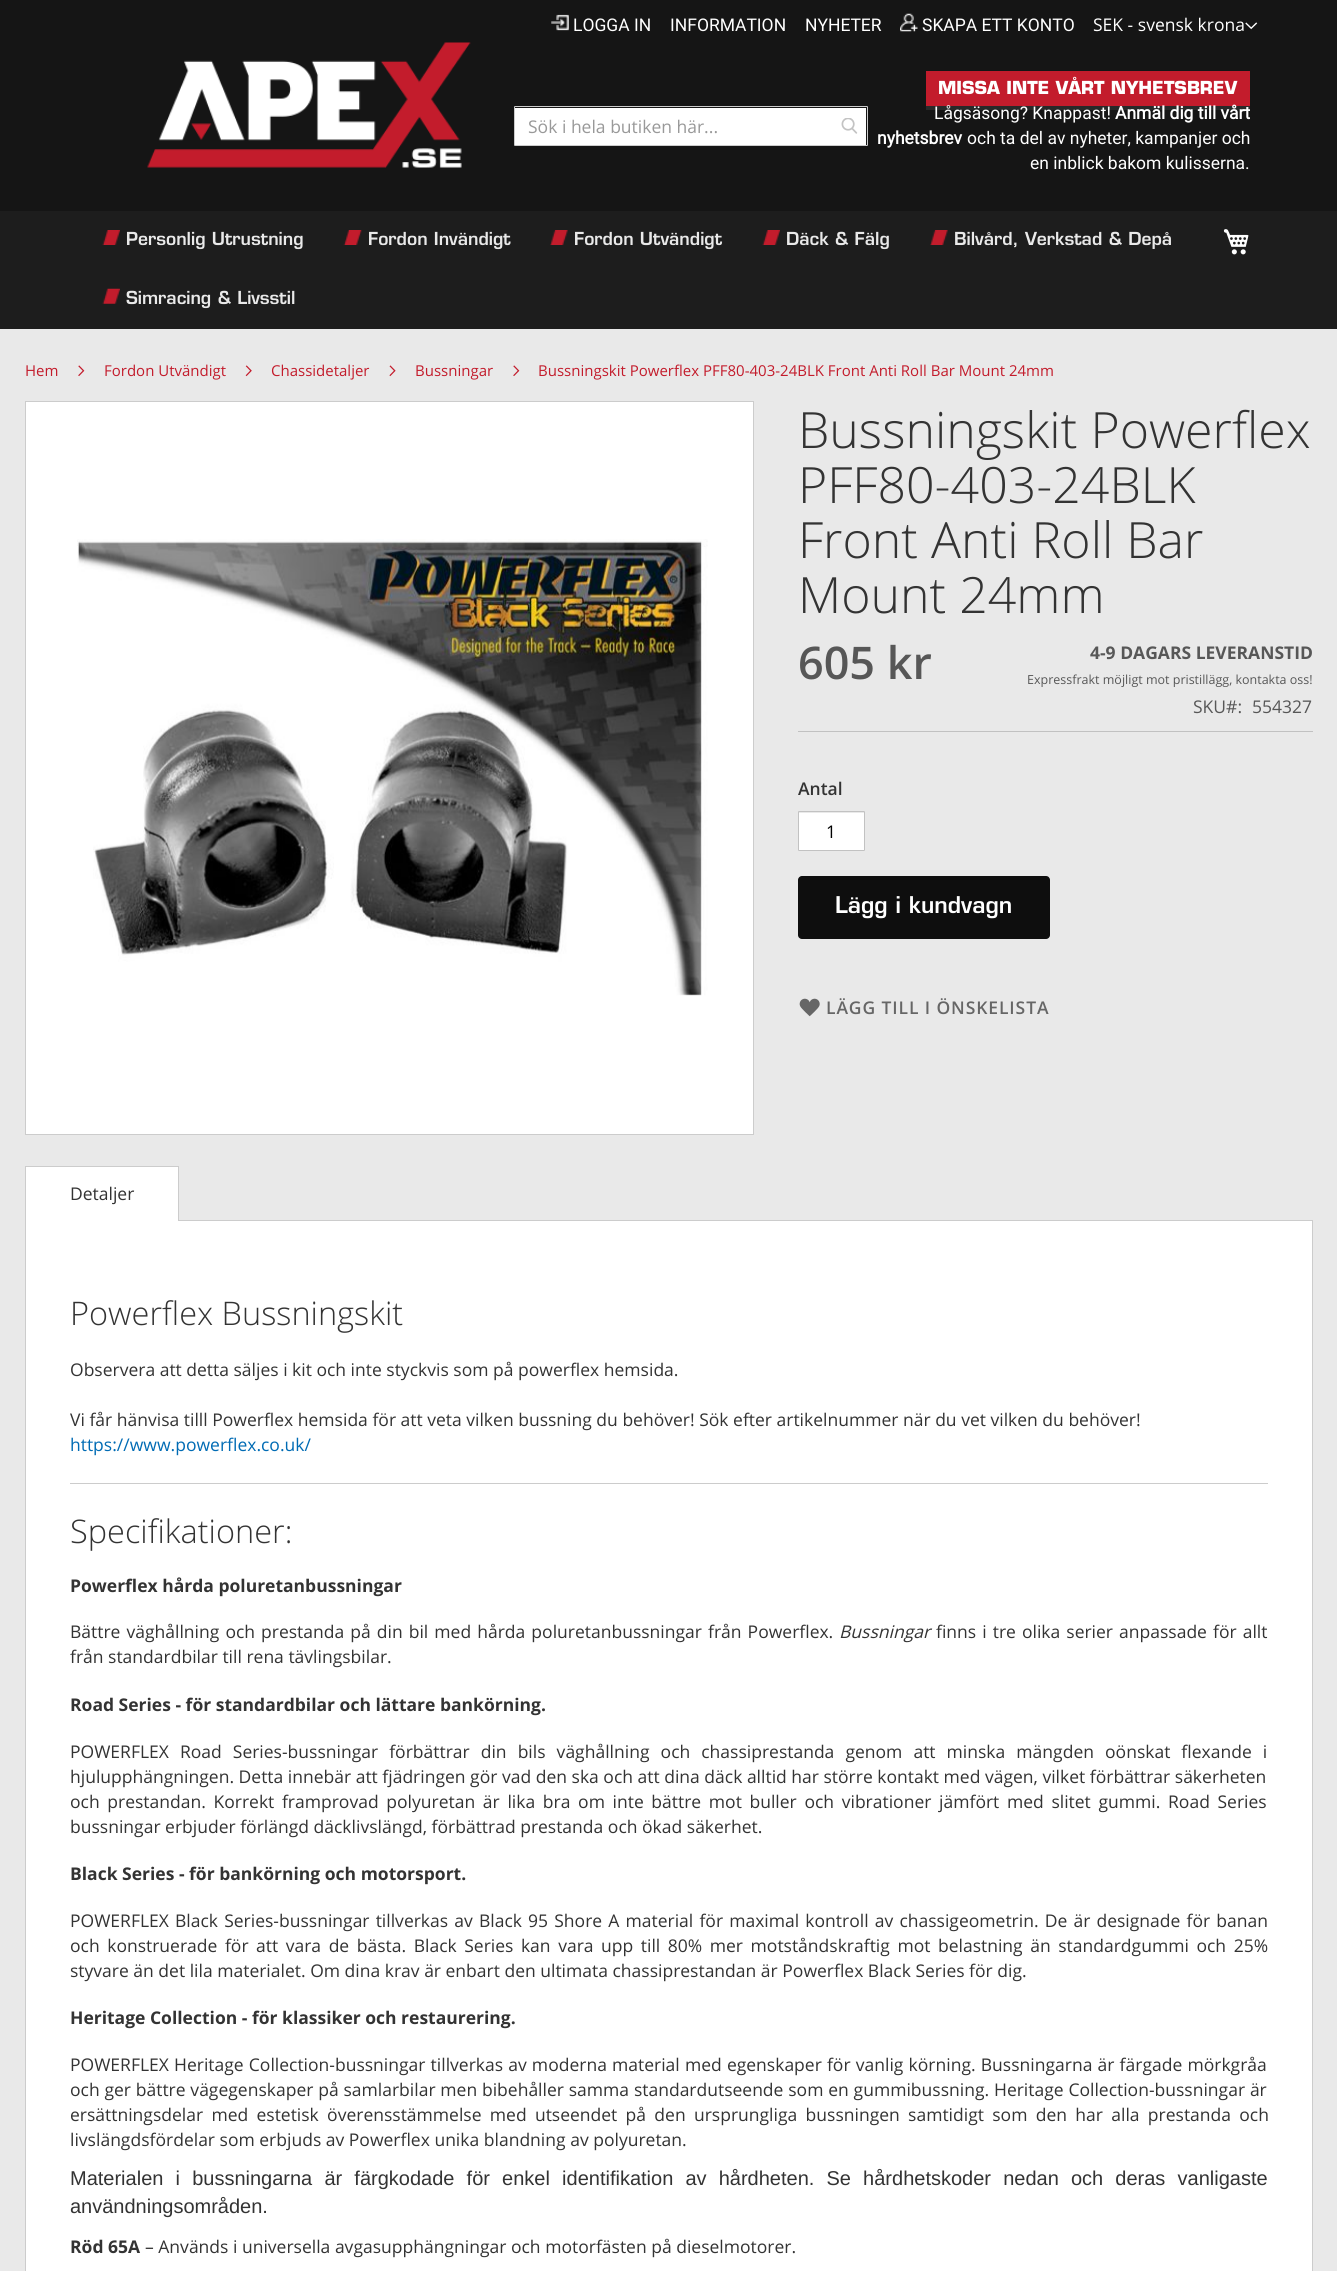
import math
import cairo

surface = cairo.ImageSurface(cairo.FORMAT_RGB24, 1337, 2271)
c = cairo.Context(surface)
options = cairo.FontOptions()
options.set_hint_metrics(cairo.HINT_METRICS_OFF)
options.set_hint_style(cairo.HINT_STYLE_NONE)
c.set_font_options(options)
c.set_miter_limit(4)
def C(code):
 c.set_source_rgb(*(v / 255 for v in bytes.fromhex(code[-6:])))
def F(family, size, italic, bold):
 c.select_font_face(family, cairo.FONT_SLANT_ITALIC if italic else cairo.FONT_SLANT_NORMAL, cairo.FONT_WEIGHT_BOLD if bold else cairo.FONT_WEIGHT_NORMAL)
 c.set_font_size(size)
def T(x, y, s):
 c.move_to(x, y)
 c.show_text(s)
def L(x, y, s, letter, word):
 c.move_to(x, y)
 for ch in s:
  c.show_text(ch)
  c.rel_move_to(letter + word * (ch == ' '), 0)
def R(x, y, w, h):
 c.rectangle(x, y, w, h)
 c.fill()
def Q(x, y, w, h, r):
 c.new_sub_path()
 for i, (u, v) in enumerate([(x + w - r, y + h - r), (x + r, y + h - r), (x + r, y + r), (x + w - r, y + r)]):
  c.arc(u, v, r, i * math.pi / 2, (i + 1) * math.pi / 2)
 c.close_path()
def I(path, x, y, w, h):
 c.save()
 c.set_source_surface(cairo.ImageSurface.create_from_png(path), x, y)
 c.rectangle(x, y, w, h)
 c.fill()
 c.restore()
C('e9e9e9')
c.paint()
C('151515')
R(0,0,1337,211)
I('1.png',551,14,18,17)
F('Roboto',17.5,0,0)
C('ffffff')
T(573,31,'LOGGA IN')
T(670,31,'INFORMATION')
T(805,31,'NYHETER')
I('2.png',900,13,18,19)
T(922,31,'SKAPA ETT KONTO')
F('Open Sans',17.5,0,0)
T(1093,31,'SEK - svensk krona')
I('3.png',1245,22,13,8)
I('4.png',147,42,324,126)
R(515,108,351,37)
Q(514.5,106.5,353,39,.5)
C('cccccc')
c.set_line_width(1)
c.stroke()
C('999999')
T(528,133,'Sök i hela butiken här...')
I('5.png',841,118,17,16)
C('c31c2c')
R(926,71,324,35)
F('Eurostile',17.5,1,1)
C('ffffff')
T(938,94,'MISSA INTE VÅRT NYHETSBREV')
C('292929')
R(926,106,324,4)
F('Roboto',17.5,0,0)
C('ffffff')
T(934,119,'Lågsäsong? Knappast!')
F('Roboto',17.5,0,1)
T(1115,119,'Anmäl dig till vårt')
T(877,144,'nyhetsbrev')
F('Roboto',17.5,0,0)
T(967,144,'och ta del av nyheter, kampanjer och')
T(1030,169,'en inblick bakom kulisserna.')
C('1d1d1d')
R(0,211,1337,118)
I('6.png',102,230,18,15)
F('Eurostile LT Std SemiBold',17.5,0,0)
C('e9e9e9')
T(126,245,'Personlig Utrustning')
I('7.png',343,230,19,15)
T(368,245,'Fordon Invändigt')
I('8.png',550,230,18,15)
T(574,245,'Fordon Utvändigt')
I('6.png',762,230,18,15)
T(786,245,'Däck & Fälg')
I('8.png',930,230,18,15)
T(954,245,'Bilvård, Verkstad & Depå')
I('9.png',102,288,18,16)
T(126,304,'Simracing & Livsstil')
I('10.png',1223,229,26,26)
F('Open Sans',15,0,0)
C('c31c2c')
T(25,376,'Hem')
I('11.png',78,365,7,11)
T(104,376,'Fordon Utvändigt')
I('12.png',245,365,7,12)
T(271,376,'Chassidetaljer')
I('13.png',389,365,7,12)
T(415,376,'Bussningar')
I('11.png',513,365,7,11)
T(538,376,'Bussningskit Powerflex PFF80-403-24BLK Front Anti Roll Bar Mount 24mm')
C('ffffff')
c.rectangle(25.5,401.5,728,733)
c.fill_preserve()
C('cccccc')
c.stroke()
I('14.png',77,539,631,457)
F('Open Sans Light',50,0,0)
C('333333')
T(798,448,'Bussningskit Powerflex')
T(798,503,'PFF80-403-24BLK')
T(798,558,'Front Anti Roll Bar')
T(798,613,'Mount 24mm')
C('c1c1c1')
R(798,731,515,1)
F('Open Sans SemiBold',45,0,0)
C('575757')
T(798,679,'605 kr')
F('Open Sans',17.5,0,1)
T(1090,659,'4-9 DAGARS LEVERANSTID')
F('Open Sans',12.5,0,0)
T(1027,684,'Expressfrakt möjligt mot pristillägg, kontakta oss!')
F('Open Sans',17.5,0,0)
T(1193,713,'SKU#:')
T(1252,713,'554327')
F('Open Sans SemiBold',17.5,0,0)
C('333333')
T(798,795,'Antal')
C('ffffff')
R(799,813,65,37)
Q(798.5,811.5,66,39,.5)
C('c2c2c2')
c.stroke()
F('Open Sans',17.5,0,0)
C('000000')
T(826,838,'1')
C('0e0e0e')
Q(798,876,252,63,4)
c.fill()
F('Eurostile LT Std SemiBold',22.5,0,0)
C('ffffff')
T(835,913,'Lägg i kundvagn')
I('15.png',799,998,21,19)
F('Open Sans SemiBold',17.5,0,0)
C('666666')
L(826,1014,'LÄGG TILL I ÖNSKELISTA',.9,0)
C('ffffff')
c.rectangle(25.5,1220.5,1287,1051)
c.fill_preserve()
C('cccccc')
c.stroke()
C('ffffff')
R(26,1167,152,54)
C('cccccc')
R(25,1166,154,1)
R(178,1166,1,55)
R(25,1166,1,55)
F('Open Sans',17.5,0,0)
C('333333')
T(70,1200,'Detaljer')
F('Open Sans Light',32.5,0,0)
T(70,1325,'Powerflex Bussningskit')
F('Open Sans',17.5,0,0)
T(70,1376,'Observera att detta säljes i kit och inte styckvis som på powerflex hemsida.')
T(70,1426,'Vi får hänvisa tilll Powerflex hemsida för att veta vilken bussning du behöver! Sök efter artikelnummer när du vet vilken du behöver!')
C('006bb4')
T(70,1451,'https://www.powerflex.co.uk/')
C('cccccc')
R(70,1483,1198,1)
F('Open Sans Light',32.5,0,0)
C('333333')
T(70,1543,'Specifikationer:')
F('Open Sans',17.5,0,1)
T(70,1592,'Powerflex hårda poluretanbussningar')
F('Open Sans',17.5,0,0)
L(70,1638,'Bättre väghållning och prestanda på din bil med hårda poluretanbussningar från Powerflex.',0,1.5)
F('Open Sans',17.5,1,0)
T(839,1638,'Bussningar')
F('Open Sans',17.5,0,0)
L(936,1638,'finns i tre olika serier anpassade för allt',0,1.5)
T(70,1663,'från standardbilar till rena tävlingsbilar.')
F('Open Sans',17.5,0,1)
T(70,1711,'Road Series - för standardbilar och lättare bankörning.')
F('Open Sans',17.5,0,0)
L(70,1758,'POWERFLEX Road Series-bussningar förbättrar din bils väghållning och chassiprestanda genom att minska mängden oönskat flexande i',0,6.5)
T(70,1783,'hjulupphängningen. Detta innebär att fjädringen gör vad den ska och att dina däck alltid har större kontakt med vägen, vilket förbättrar säkerheten')
L(70,1808,'och prestandan. Korrekt framprovad polyuretan är lika bra om inte bättre mot buller och vibrationer jämfört med slitet gummi. Road Series',0,3.1)
T(70,1833,'bussningar erbjuder förlängd däcklivslängd, förbättrad prestanda och ökad säkerhet.')
F('Open Sans',17.5,0,1)
T(70,1880,'Black Series - för bankörning och motorsport.')
F('Open Sans',17.5,0,0)
L(70,1927,'POWERFLEX Black Series-bussningar tillverkas av Black 95 Shore A material för maximal kontroll av chassigeometrin. De är designade för banan',0,1.6)
L(70,1952,'och konstruerade för att vara de bästa. Black Series kan vara upp till 80% mer motståndskraftig mot belastning än standardgummi och 25%',0,3)
T(70,1977,'styvare än det lila materialet. Om dina krav är enbart den ultimata chassiprestandan är Powerflex Black Series för dig.')
F('Open Sans',17.5,0,1)
T(70,2024,'Heritage Collection - för klassiker och restaurering.')
F('Open Sans',17.5,0,0)
L(70,2071,'POWERFLEX Heritage Collection-bussningar tillverkas av moderna material med egenskaper för vanlig körning. Bussningarna är färgade mörkgråa',0,.6)
L(70,2096,'och ger bättre vägegenskaper på samlarbilar men bibehåller samma standardutseende som en gummibussning. Heritage Collection-bussningar är',0,.25)
L(70,2121,'ersättningsdelar med estetisk överensstämmelse med utseendet på den ursprungliga bussningen samtidigt som den har alla prestanda och',0,3.75)
T(70,2146,'livslängdsfördelar som erbjuds av Powerflex unika blandning av polyuretan.')
F('Liberation Sans',20,0,0)
L(70,2185,'Materialen i bussningarna är färgkodade för enkel identifikation av hårdheten. Se hårdhetskoder nedan och deras vanligaste',0,6.6)
T(70,2213,'användningsområden.')
F('Open Sans',17.5,0,1)
T(70,2253,'Röd 65A')
F('Open Sans',17.5,0,0)
T(145,2253,'– Används i universella avgasupphängningar och motorfästen på dieselmotorer.')
surface.write_to_png('o.png')
